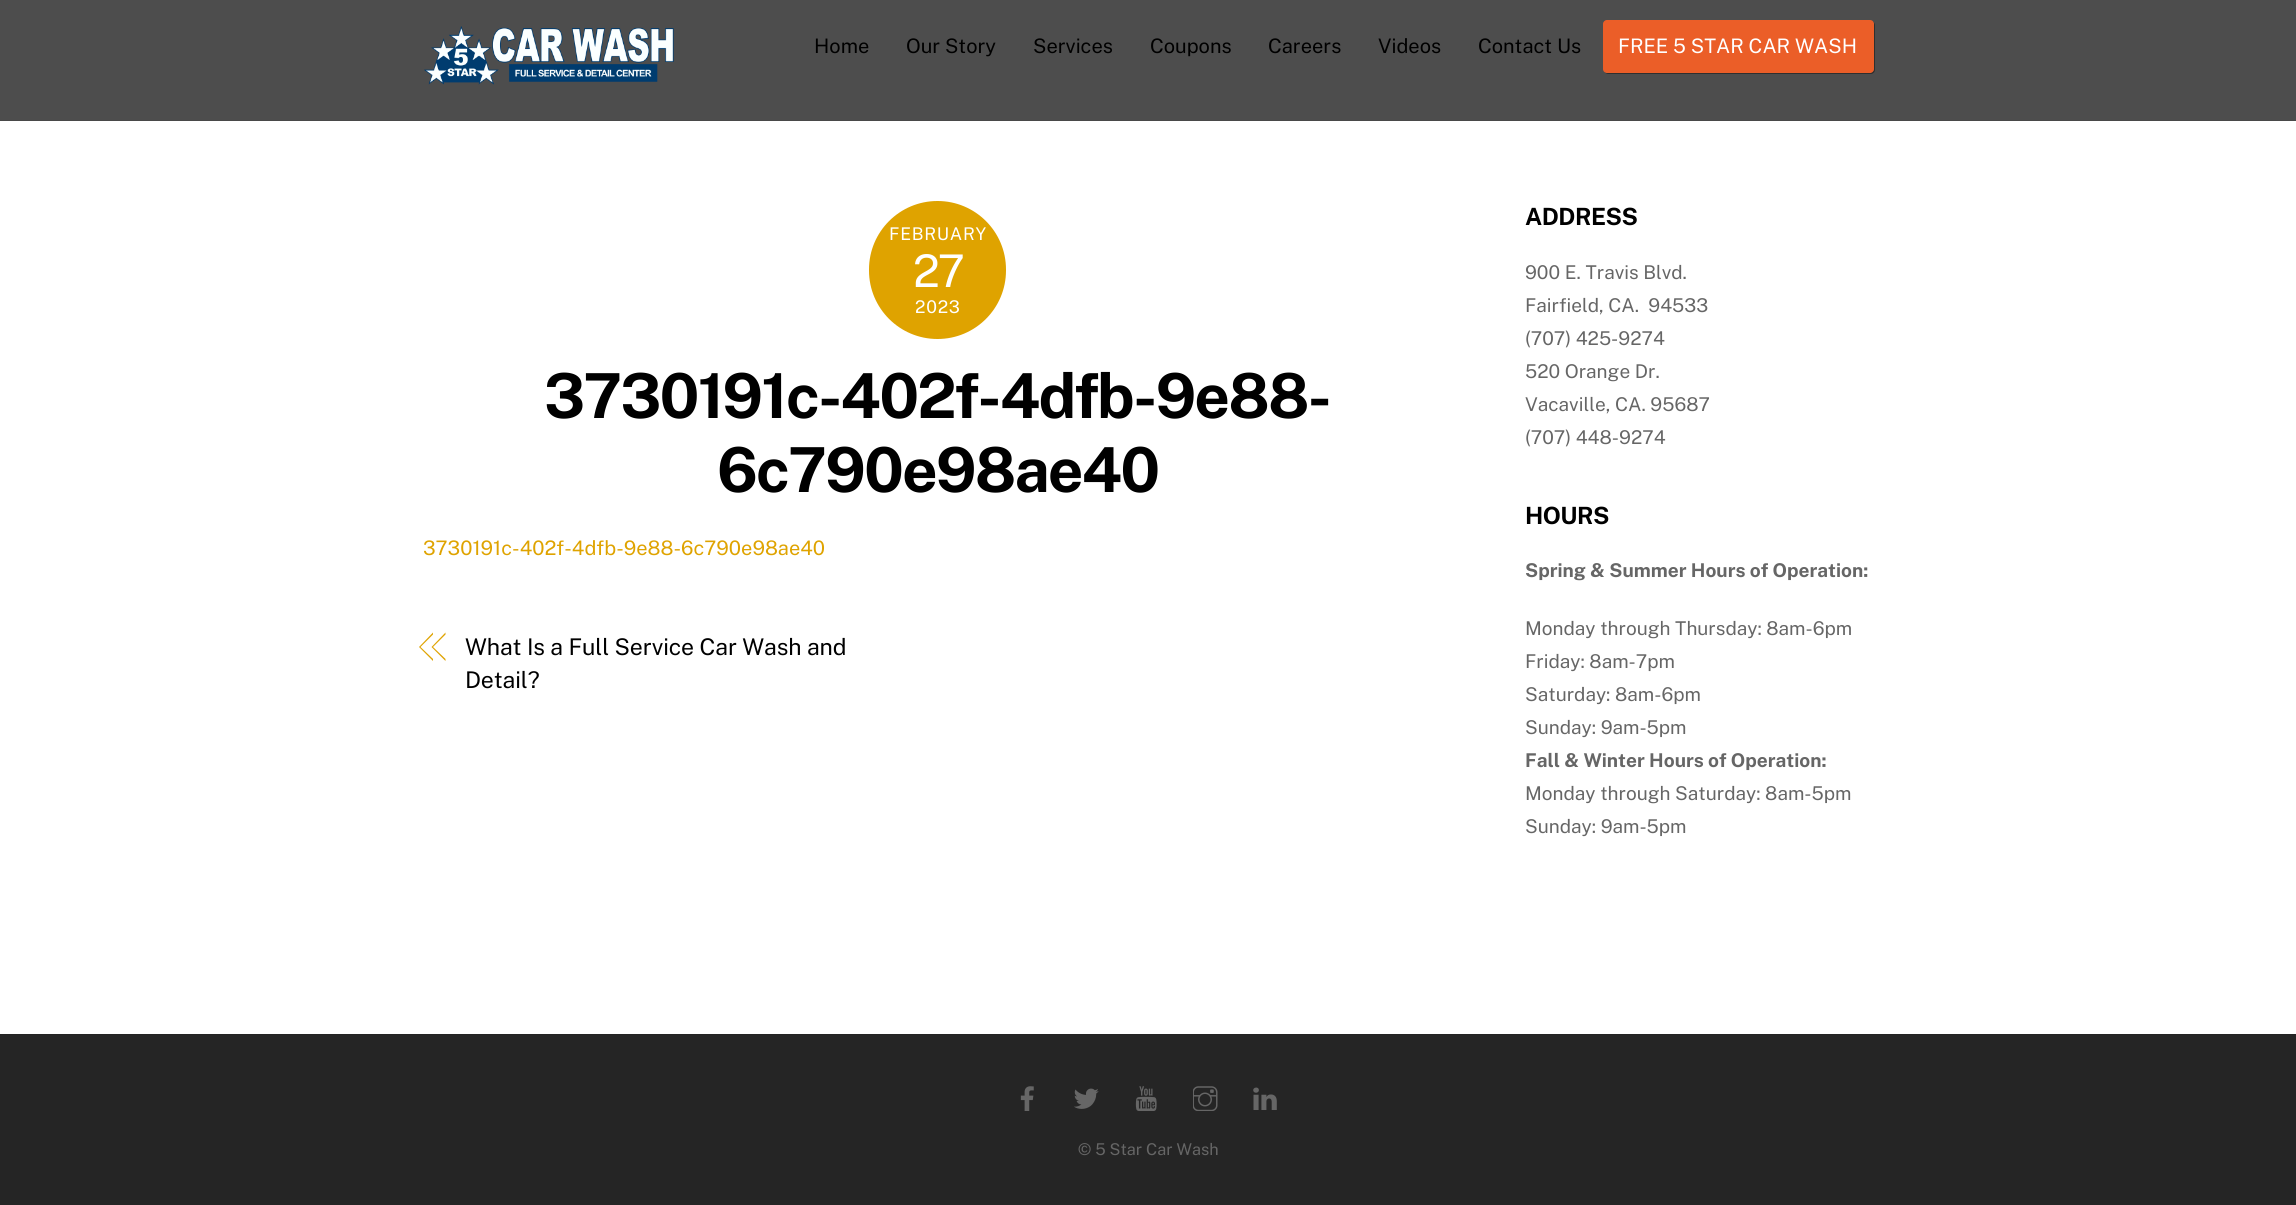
import math
import cairo

surface = cairo.ImageSurface(cairo.FORMAT_RGB24, 2296, 1205)
c = cairo.Context(surface)
options = cairo.FontOptions()
options.set_hint_metrics(cairo.HINT_METRICS_OFF)
options.set_hint_style(cairo.HINT_STYLE_NONE)
c.set_font_options(options)
c.set_miter_limit(4)
def C(code):
 c.set_source_rgb(*(v / 255 for v in bytes.fromhex(code[-6:])))
def F(family, size, italic, bold):
 c.select_font_face(family, cairo.FONT_SLANT_ITALIC if italic else cairo.FONT_SLANT_NORMAL, cairo.FONT_WEIGHT_BOLD if bold else cairo.FONT_WEIGHT_NORMAL)
 c.set_font_size(size)
def T(x, y, s):
 c.move_to(x, y)
 c.show_text(s)
def L(x, y, s, letter, word):
 c.move_to(x, y)
 for ch in s:
  c.show_text(ch)
  c.rel_move_to(letter + word * (ch == ' '), 0)
def R(x, y, w, h):
 c.rectangle(x, y, w, h)
 c.fill()
def Q(x, y, w, h, r):
 c.new_sub_path()
 for i, (u, v) in enumerate([(x + w - r, y + h - r), (x + r, y + h - r), (x + r, y + r), (x + w - r, y + r)]):
  c.arc(u, v, r, i * math.pi / 2, (i + 1) * math.pi / 2)
 c.close_path()
def I(path, x, y, w, h):
 c.save()
 c.set_source_surface(cairo.ImageSurface.create_from_png(path), x, y)
 c.rectangle(x, y, w, h)
 c.fill()
 c.restore()
C('ffffff')
c.paint()
C('4d4d4d')
R(0,0,2296,120)
C('494949')
R(0,120,2296,1)
I('1.png',424,26,250,59)
F('Public Sans',20,0,0)
C('000000')
T(814,53,'Home')
T(906,53,'Our Story')
T(1033,53,'Services')
T(1150,53,'Coupons')
T(1268,53,'Careers')
T(1378,53,'Videos')
T(1478,53,'Contact Us')
C('2f2f2f')
c.new_path()
c.move_to(1605,72)
c.curve_to(1605,73,1607,74,1608,74)
c.line_to(1871,74)
c.curve_to(1873,74,1875,72,1875,70)
c.line_to(1875,25)
c.curve_to(1875,24,1874,22,1873,22)
c.line_to(1874,24)
c.line_to(1874,69)
c.curve_to(1874,71,1872,72,1870,72)
c.line_to(1606,72)
c.close_path()
c.fill()
C('eb5e28')
Q(1603,20,271,53,4)
c.fill()
C('ffffff')
T(1618,53,'FREE 5 STAR CAR WASH')
C('dfa300')
Q(869,201,137,138,68.5)
c.fill()
F('Public Sans',17.5,0,0)
C('ffffff')
L(889,240,'FEBRUARY',.75,0)
F('Public Sans',45,0,0)
L(913,287,'27',-2,0)
F('Public Sans',17.5,0,0)
L(915,313,'2023',.75,0)
F('Public Sans',62,0,1)
C('000000')
L(544,418,'3730191c-402f-4dfb-9e88-',-1.9,0)
L(717,492,'6c790e98ae40',-1.9,0)
F('Public Sans',20,0,0)
C('dfa300')
T(423,555,'3730191c-402f-4dfb-9e88-6c790e98ae40')
c.new_path()
c.move_to(419,647)
c.line_to(433,632.5)
c.line_to(433,634.5)
c.line_to(420.5,647)
c.close_path()
c.move_to(433,661)
c.line_to(419,647)
c.line_to(420.5,647)
c.line_to(433,659)
c.close_path()
c.fill()
c.new_path()
c.move_to(431.5,647)
c.line_to(445.5,632.5)
c.line_to(445.5,634.5)
c.line_to(433,647)
c.close_path()
c.move_to(445.5,661)
c.line_to(431.5,647)
c.line_to(433,647)
c.line_to(445.5,659)
c.close_path()
c.fill()
F('Public Sans',23,0,0)
C('000000')
L(465,655,'What Is a Full Service Car Wash and',-.1,0)
L(465,688,'Detail?',-.1,0)
F('Public Sans',23.75,0,1)
L(1525,225,'ADDRESS',-.5,0)
F('Public Sans',19,0,0)
C('666666')
T(1525,279,'900 E. Travis Blvd.')
T(1525,312,'Fairfield, CA.  94533')
T(1525,345,'(707) 425-9274')
T(1525,378,'520 Orange Dr.')
T(1525,411,'Vacaville, CA. 95687')
T(1525,444,'(707) 448-9274')
F('Public Sans',23.75,0,1)
C('000000')
L(1525,524,'HOURS',-.5,0)
F('Public Sans',19,0,1)
C('666666')
T(1525,577,'Spring & Summer Hours of Operation:')
F('Public Sans',19,0,0)
T(1525,635,'Monday through Thursday: 8am-6pm')
T(1525,668,'Friday: 8am-7pm')
T(1525,701,'Saturday: 8am-6pm')
T(1525,734,'Sunday: 9am-5pm')
F('Public Sans',19,0,1)
T(1525,767,'Fall & Winter Hours of Operation:')
F('Public Sans',19,0,0)
T(1525,800,'Monday through Saturday: 8am-5pm')
T(1525,833,'Sunday: 9am-5pm')
C('252525')
R(0,1035,2296,170)
C('232323')
R(0,1034,2296,1)
I('2.png',1020,1086,14,25)
I('3.png',1074,1088,25,21)
I('4.png',1135,1086,22,25)
I('5.png',1193,1086,25,25)
I('6.png',1253,1087,24,23)
F('Public Sans',16.25,0,0)
C('666666')
T(1078,1155,'© 5 Star Car Wash')
surface.write_to_png('o.png')
